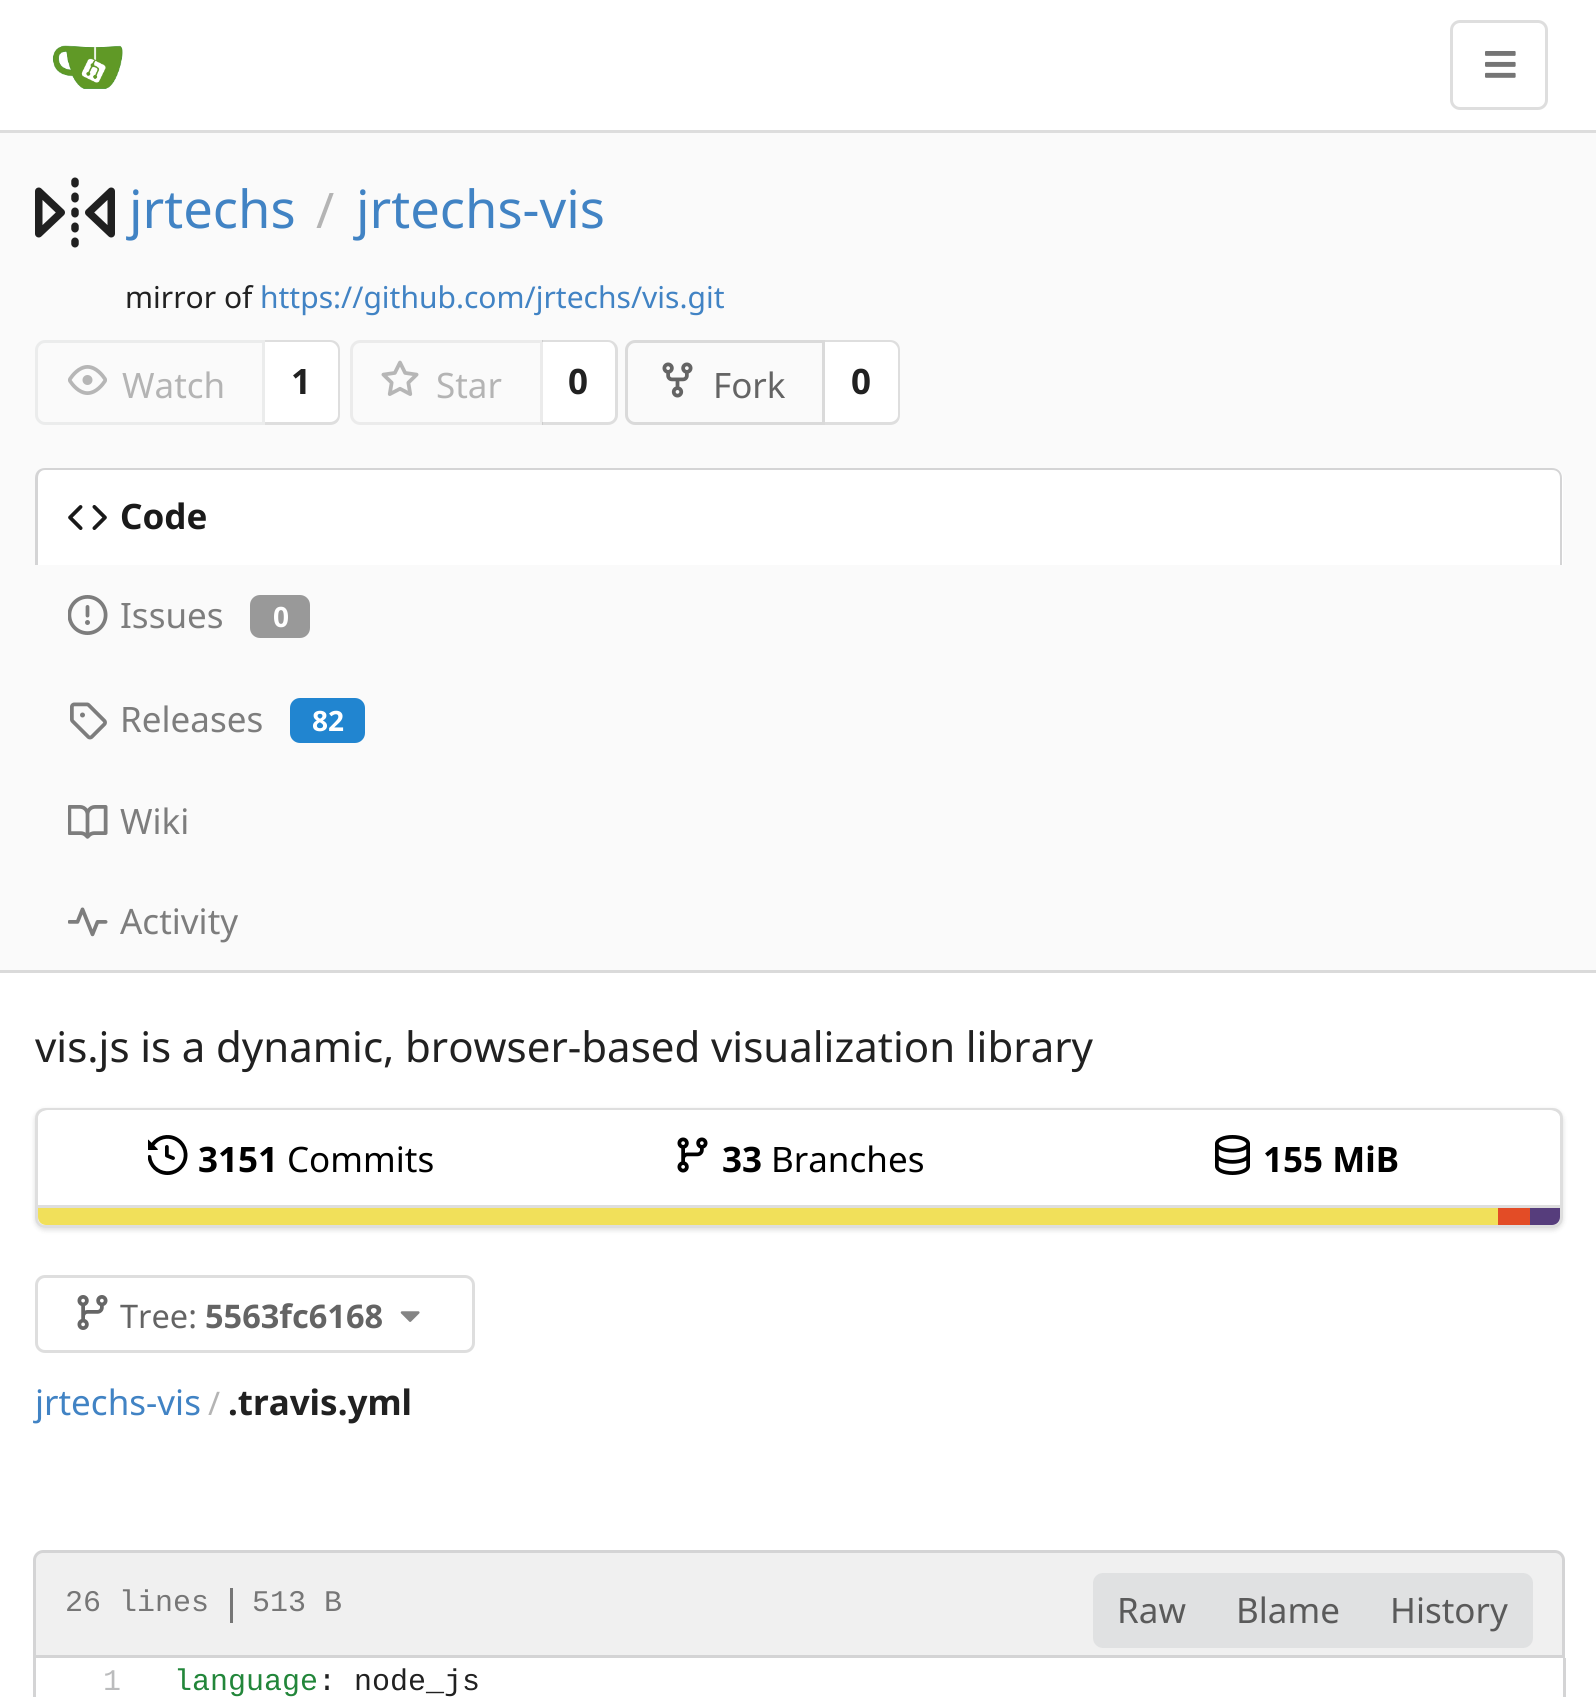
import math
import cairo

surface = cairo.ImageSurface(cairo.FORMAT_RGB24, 1596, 1697)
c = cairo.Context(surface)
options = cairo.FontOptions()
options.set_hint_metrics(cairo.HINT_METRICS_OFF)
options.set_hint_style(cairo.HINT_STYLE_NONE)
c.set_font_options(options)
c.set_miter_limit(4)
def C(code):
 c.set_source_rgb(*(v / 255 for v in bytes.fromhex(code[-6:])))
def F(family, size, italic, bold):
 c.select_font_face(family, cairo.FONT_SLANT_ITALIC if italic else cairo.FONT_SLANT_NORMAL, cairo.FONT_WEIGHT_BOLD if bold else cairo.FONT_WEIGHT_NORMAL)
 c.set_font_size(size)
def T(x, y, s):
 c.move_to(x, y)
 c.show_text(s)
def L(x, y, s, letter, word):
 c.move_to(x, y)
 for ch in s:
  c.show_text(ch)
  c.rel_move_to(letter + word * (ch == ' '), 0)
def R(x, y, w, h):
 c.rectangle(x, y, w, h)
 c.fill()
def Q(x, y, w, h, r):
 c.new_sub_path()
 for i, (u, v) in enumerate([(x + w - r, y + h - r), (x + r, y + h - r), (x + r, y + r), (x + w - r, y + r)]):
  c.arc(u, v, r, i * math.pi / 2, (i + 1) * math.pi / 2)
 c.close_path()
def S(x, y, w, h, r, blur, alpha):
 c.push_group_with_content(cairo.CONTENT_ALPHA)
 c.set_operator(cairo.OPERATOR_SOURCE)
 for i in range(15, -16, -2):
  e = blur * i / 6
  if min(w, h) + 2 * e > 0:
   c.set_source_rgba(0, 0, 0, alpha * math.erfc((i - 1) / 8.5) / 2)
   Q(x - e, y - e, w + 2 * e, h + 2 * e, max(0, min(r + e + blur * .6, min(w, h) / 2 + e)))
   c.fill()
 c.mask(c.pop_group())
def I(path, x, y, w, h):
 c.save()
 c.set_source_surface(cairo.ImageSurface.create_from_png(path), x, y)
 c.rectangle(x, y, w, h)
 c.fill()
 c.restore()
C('ffffff')
c.paint()
C('dddddd')
R(0,130,1596,3)
I('1.png',52,45,71,44)
Q(1451.5,21.5,95,87,8.5)
C('dedede')
c.set_line_width(3)
c.stroke()
I('2.png',1485,51,31,27)
C('fafafa')
R(0,133,1596,837)
I('3.png',35,177,80,71)
F('Noto Sans',52.5,0,0)
C('4183c4')
T(129,228,'jrtechs')
F('Noto Sans',49,0,0)
C('b4b4b4')
T(316,228,'/')
F('Noto Sans',52.5,0,0)
C('4183c4')
T(356,228,'jrtechs-vis')
F('Noto Sans',30,0,0)
C('212121')
T(125,308,'mirror of')
C('4183c4')
T(260,308,'https://github.com/jrtechs/vis.git')
c.new_path()
c.move_to(45,341.5)
c.line_to(263.5,341.5)
c.line_to(263.5,423.5)
c.line_to(45,423.5)
c.curve_to(40.5,423.5,36.5,419.5,36.5,415)
c.line_to(36.5,350)
c.curve_to(36.5,345.5,40.5,341.5,45,341.5)
c.close_path()
C('ebecec')
c.stroke()
I('4.png',68,365,39,30)
F('Noto Sans',35,0,0)
C('b4b4b4')
T(122,398,'Watch')
C('ffffff')
c.new_path()
c.move_to(265,340)
c.line_to(330,340)
c.curve_to(335.5,340,340,344.5,340,350)
c.line_to(340,415)
c.curve_to(340,420.5,335.5,425,330,425)
c.line_to(265,425)
c.close_path()
c.fill()
c.set_source_rgba(0.133,0.141,0.149,0.15)
c.set_fill_rule(cairo.FILL_RULE_EVEN_ODD)
c.new_path()
c.move_to(265,340)
c.line_to(330,340)
c.curve_to(336,340,340,344,340,350)
c.line_to(340,415)
c.curve_to(340,421,336,425,330,425)
c.line_to(265,425)
c.close_path()
c.move_to(265,342)
c.line_to(330,342)
c.curve_to(334,342,338,346,338,350)
c.line_to(338,415)
c.curve_to(338,419,334,422,330,422)
c.line_to(265,422)
c.close_path()
c.fill()
F('Noto Sans',35,0,1)
C('212121')
T(291,394,'1')
C('ffffff')
c.new_path()
c.move_to(543,340)
c.line_to(608,340)
c.curve_to(613.5,340,618,344.5,618,350)
c.line_to(618,415)
c.curve_to(618,420.5,613.5,425,608,425)
c.line_to(543,425)
c.close_path()
c.fill()
c.set_source_rgba(0.133,0.141,0.149,0.15)
c.new_path()
c.move_to(542,340)
c.line_to(608,340)
c.curve_to(613,340,618,344,618,350)
c.line_to(618,415)
c.curve_to(618,421,613,425,608,425)
c.line_to(542,425)
c.close_path()
c.move_to(542,342)
c.line_to(608,342)
c.curve_to(612,342,615,346,615,350)
c.line_to(615,415)
c.curve_to(615,419,612,422,608,422)
c.line_to(542,422)
c.close_path()
c.fill()
c.new_path()
c.move_to(360,341.5)
c.line_to(541.5,341.5)
c.line_to(541.5,423.5)
c.line_to(360,423.5)
c.curve_to(355.5,423.5,351.5,419.5,351.5,415)
c.line_to(351.5,350)
c.curve_to(351.5,345.5,355.5,341.5,360,341.5)
c.close_path()
c.set_source_rgba(0.133,0.141,0.149,0.07)
c.stroke()
I('5.png',381,360,38,36)
F('Noto Sans',35,0,0)
C('b4b4b4')
T(436,398,'Star')
F('Noto Sans',35,0,1)
C('212121')
T(568,394,'0')
c.new_path()
c.move_to(635,341.5)
c.line_to(823.5,341.5)
c.line_to(823.5,423.5)
c.line_to(635,423.5)
c.curve_to(630.5,423.5,626.5,419.5,626.5,415)
c.line_to(626.5,350)
c.curve_to(626.5,345.5,630.5,341.5,635,341.5)
c.close_path()
C('dadada')
c.stroke()
I('6.png',662,362,31,36)
F('Noto Sans',35,0,0)
C('646464')
T(713,398,'Fork')
C('ffffff')
c.new_path()
c.move_to(825,340)
c.line_to(890,340)
c.curve_to(895.5,340,900,344.5,900,350)
c.line_to(900,415)
c.curve_to(900,420.5,895.5,425,890,425)
c.line_to(825,425)
c.close_path()
c.fill()
c.set_source_rgba(0.133,0.141,0.149,0.15)
c.new_path()
c.move_to(825,340)
c.line_to(890,340)
c.curve_to(896,340,900,344,900,350)
c.line_to(900,415)
c.curve_to(900,421,896,425,890,425)
c.line_to(825,425)
c.close_path()
c.move_to(825,342)
c.line_to(890,342)
c.curve_to(894,342,898,346,898,350)
c.line_to(898,415)
c.curve_to(898,419,894,422,890,422)
c.line_to(825,422)
c.close_path()
c.fill()
F('Noto Sans',35,0,1)
C('212121')
T(851,394,'0')
C('ffffff')
c.new_path()
c.move_to(45,468)
c.line_to(1553,468)
c.curve_to(1558.5,468,1563,472.5,1563,478)
c.line_to(1563,565)
c.line_to(35,565)
c.line_to(35,478)
c.curve_to(35,472.5,39.5,468,45,468)
c.close_path()
c.fill()
C('d4d4d5')
c.new_path()
c.move_to(45,468)
c.line_to(1552,468)
c.curve_to(1558,468,1562,472,1562,478)
c.line_to(1562,565)
c.line_to(35,565)
c.line_to(35,478)
c.curve_to(35,472,39,468,45,468)
c.close_path()
c.move_to(45,470)
c.line_to(1552,470)
c.curve_to(1557,470,1560,473,1560,478)
c.line_to(1560,565)
c.line_to(38,565)
c.line_to(38,478)
c.curve_to(38,473,41,470,45,470)
c.close_path()
c.fill()
I('7.png',68,505,39,25)
C('1a1a1a')
T(120,529,'Code')
I('8.png',68,595,40,40)
F('Noto Sans',35,0,0)
C('7d7d7d')
T(120,628,'Issues')
C('999999')
Q(250,595,60,43,10)
c.fill()
F('Noto Sans',28,0,1)
C('ffffff')
T(273,627,'0')
I('9.png',70,702,37,38)
F('Noto Sans',35,0,0)
C('7d7d7d')
T(120,732,'Releases')
C('2185d0')
Q(290,698,75,45,10)
c.fill()
F('Noto Sans',28,0,1)
C('ffffff')
T(312,731,'82')
I('10.png',68,805,40,34)
F('Noto Sans',35,0,0)
C('7d7d7d')
T(120,834,'Wiki')
I('11.png',68,907,40,30)
T(120,934,'Activity')
C('dadada')
R(0,970,1596,3)
F('Noto Sans',42,0,0)
C('212121')
L(35,1062,'vis.js is a dynamic, browser-based visualization library',0,-.25)
c.save()
c.new_path()
c.move_to(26,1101)
c.line_to(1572,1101)
c.line_to(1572,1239)
c.line_to(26,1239)
c.close_path()
c.move_to(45,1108)
c.line_to(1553,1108)
c.curve_to(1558.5,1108,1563,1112.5,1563,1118)
c.line_to(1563,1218)
c.curve_to(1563,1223.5,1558.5,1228,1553,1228)
c.line_to(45,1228)
c.curve_to(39.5,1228,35,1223.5,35,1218)
c.line_to(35,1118)
c.curve_to(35,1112.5,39.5,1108,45,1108)
c.close_path()
c.clip()
C('222426')
S(35,1110,1528,120,10,2.5,.15)
c.restore()
Q(36.5,1109.5,1525,117,8.5)
c.set_source_rgba(0.133,0.141,0.149,0.15)
c.stroke()
C('ffffff')
c.new_path()
c.move_to(48,1110)
c.line_to(1550,1110)
c.curve_to(1555.5,1110,1560,1114.5,1560,1120)
c.line_to(1560,1205)
c.line_to(38,1205)
c.line_to(38,1120)
c.curve_to(38,1114.5,42.5,1110,48,1110)
c.close_path()
c.fill()
I('12.png',148,1135,40,40)
F('Noto Sans',35,0,1)
C('000000')
T(198,1172,'3151')
F('Noto Sans',35,0,0)
T(287,1172,'Commits')
I('13.png',677,1137,31,36)
F('Noto Sans',35,0,1)
T(722,1172,'33')
F('Noto Sans',35,0,0)
T(771,1172,'Branches')
I('14.png',1215,1135,35,40)
F('Noto Sans',35,0,1)
T(1263,1172,'155 MiB')
C('dedede')
R(38,1205,1522,3)
C('f1e05a')
c.new_path()
c.move_to(38,1208)
c.line_to(1498,1208)
c.line_to(1498,1225)
c.line_to(46,1225)
c.curve_to(41.5,1225,38,1221.5,38,1217)
c.close_path()
c.fill()
C('e34c26')
R(1498,1208,32,17)
C('563d7c')
c.new_path()
c.move_to(1530,1208)
c.line_to(1560,1208)
c.line_to(1560,1217)
c.curve_to(1560,1221.5,1556.5,1225,1552,1225)
c.line_to(1530,1225)
c.close_path()
c.fill()
Q(36.5,1276.5,437,75,8.5)
C('dedede')
c.stroke()
I('15.png',77,1295,31,35)
F('Noto Sans',32.5,0,0)
C('646464')
T(120,1328,'Tree:')
F('Noto Sans',32.5,0,1)
T(205,1328,'5563fc6168')
I('16.png',400,1311,20,11)
F('Noto Sans',35,0,0)
C('4183c4')
T(35,1415,'jrtechs-vis')
F('Noto Sans',32.5,0,0)
C('b4b4b4')
T(208,1415,'/')
F('Noto Sans',35,0,1)
C('212121')
T(228,1415,'.travis.yml')
C('f0f0f0')
c.new_path()
c.move_to(43,1551.5)
c.line_to(1555,1551.5)
c.curve_to(1559.5,1551.5,1563.5,1555.5,1563.5,1560)
c.line_to(1563.5,1656.5)
c.line_to(34.5,1656.5)
c.line_to(34.5,1560)
c.curve_to(34.5,1555.5,38.5,1551.5,43,1551.5)
c.close_path()
c.fill_preserve()
C('d4d4d5')
c.stroke()
F('Liberation Mono',30,0,0)
C('767676')
T(65,1611,'26 lines')
R(230,1588,3,35)
T(252,1611,'513 B')
C('e0e1e2')
c.new_path()
c.move_to(1103,1573)
c.line_to(1210,1573)
c.line_to(1210,1648)
c.line_to(1103,1648)
c.curve_to(1097.5,1648,1093,1643.5,1093,1638)
c.line_to(1093,1583)
c.curve_to(1093,1577.5,1097.5,1573,1103,1573)
c.close_path()
c.fill()
F('Noto Sans',35,0,0)
C('5a5a5a')
T(1117,1623,'Raw')
C('e0e1e2')
R(1210,1573,155,75)
C('5a5a5a')
T(1236,1623,'Blame')
C('e0e1e2')
c.new_path()
c.move_to(1365,1573)
c.line_to(1523,1573)
c.curve_to(1528.5,1573,1533,1577.5,1533,1583)
c.line_to(1533,1638)
c.curve_to(1533,1643.5,1528.5,1648,1523,1648)
c.line_to(1365,1648)
c.close_path()
c.fill()
C('5a5a5a')
T(1390,1623,'History')
C('d4d4d5')
R(1563,1658,3,39)
R(33,1658,3,39)
F('Liberation Mono',30,0,0)
C('bbbcbd')
T(103,1690,'1')
C('22863a')
T(174,1690,'language')
C('212121')
T(318,1690,': node_js')
surface.write_to_png('o.png')
